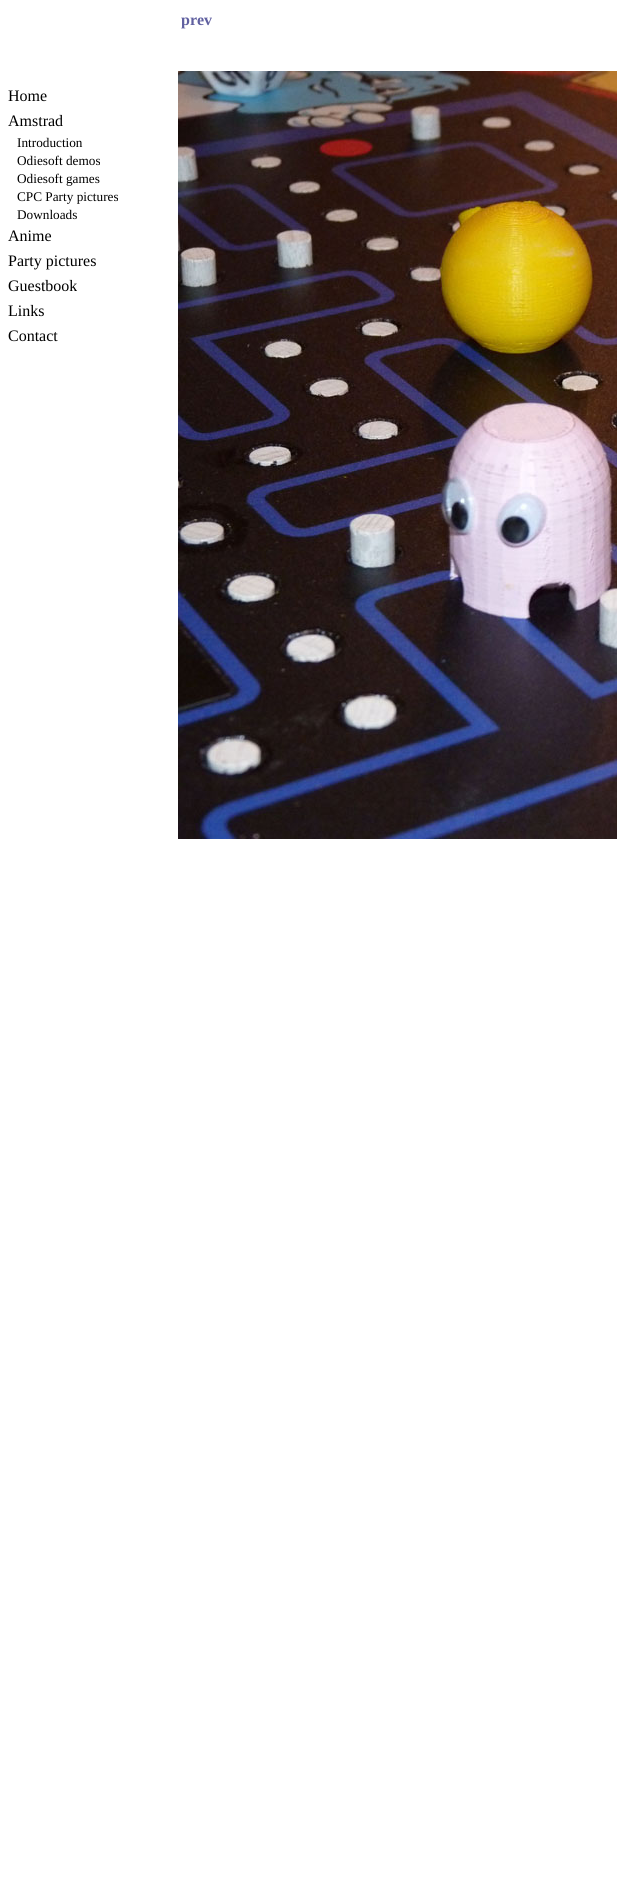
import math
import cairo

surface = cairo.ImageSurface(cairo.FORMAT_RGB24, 617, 1899)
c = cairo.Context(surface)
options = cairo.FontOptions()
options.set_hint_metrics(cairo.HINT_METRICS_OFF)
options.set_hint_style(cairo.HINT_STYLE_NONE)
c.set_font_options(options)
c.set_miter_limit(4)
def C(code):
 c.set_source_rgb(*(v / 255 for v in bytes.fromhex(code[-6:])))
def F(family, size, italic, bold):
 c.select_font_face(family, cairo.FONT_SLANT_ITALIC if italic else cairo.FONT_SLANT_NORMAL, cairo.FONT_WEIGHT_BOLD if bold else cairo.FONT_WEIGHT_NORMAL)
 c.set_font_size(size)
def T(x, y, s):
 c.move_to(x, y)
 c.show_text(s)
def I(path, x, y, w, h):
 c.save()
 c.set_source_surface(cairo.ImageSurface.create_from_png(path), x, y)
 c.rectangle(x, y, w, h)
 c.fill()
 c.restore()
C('ffffff')
c.paint()
F('Liberation Serif',16,0,1)
C('6060a0')
T(181,25,'prev')
I('1.png',178,71,439,768)
F('Liberation Serif',16,0,0)
C('000000')
T(8,101,'Home')
T(8,126,'Amstrad')
F('Liberation Serif',13.25,0,0)
T(17,147,'Introduction')
T(17,165,'Odiesoft demos')
T(17,183,'Odiesoft games')
T(17,201,'CPC Party pictures')
T(17,219,'Downloads')
F('Liberation Serif',16,0,0)
T(8,241,'Anime')
T(8,266,'Party pictures')
T(8,291,'Guestbook')
T(8,316,'Links')
T(8,341,'Contact')
surface.write_to_png('o.png')
